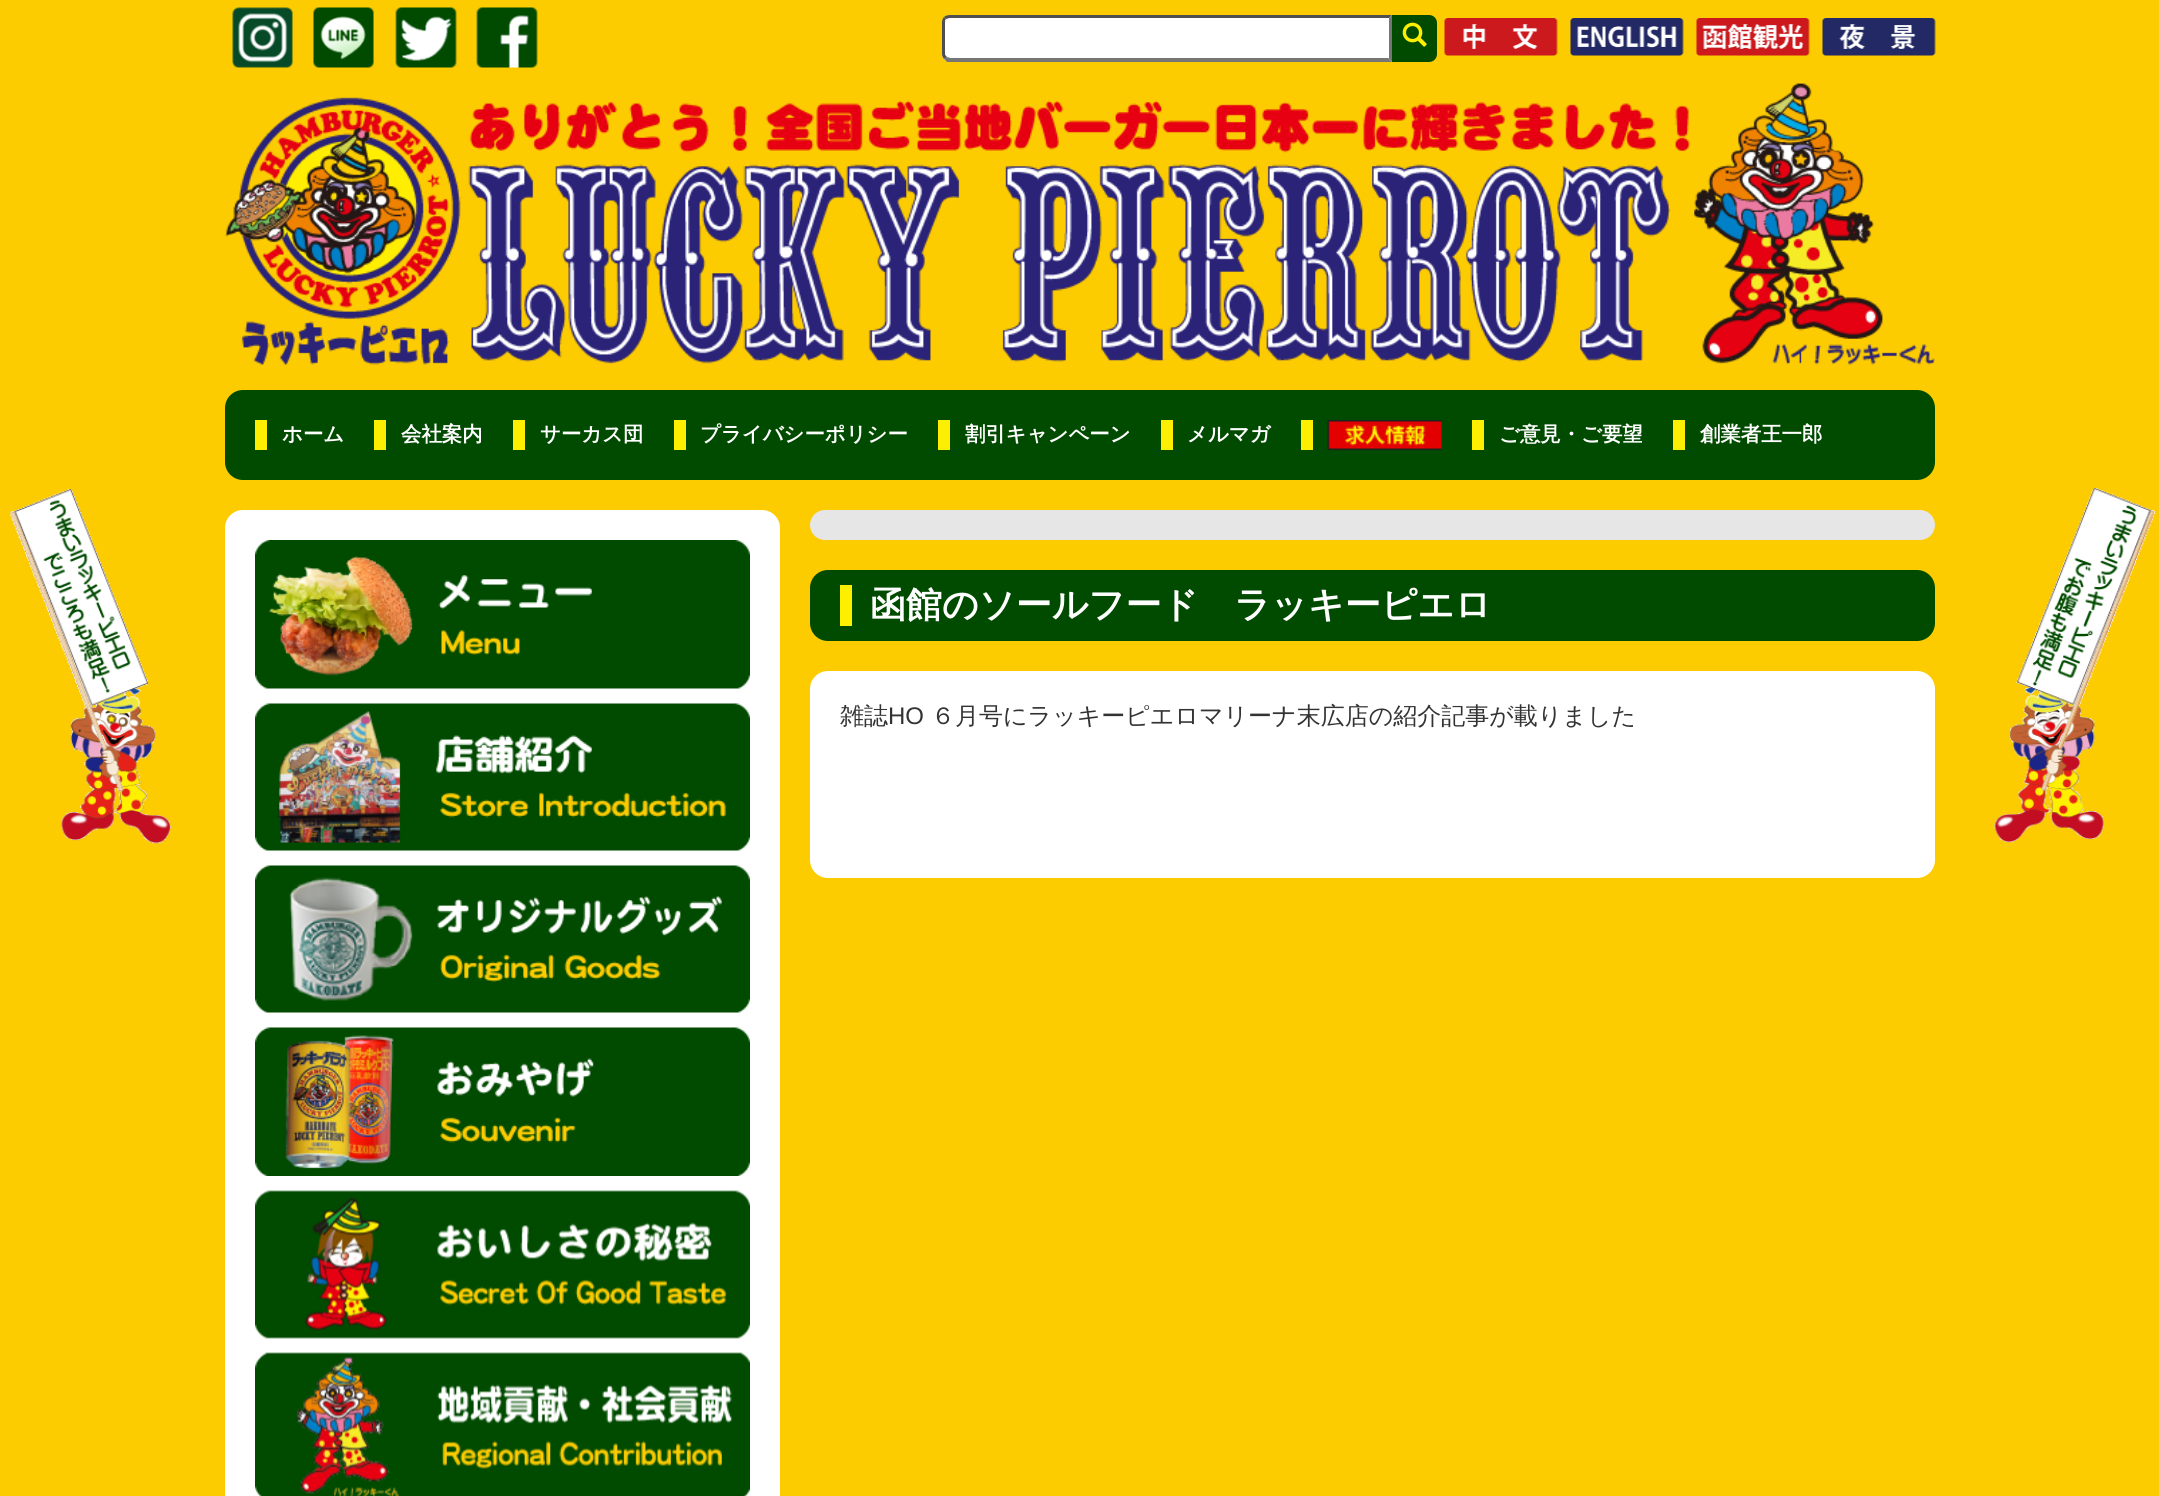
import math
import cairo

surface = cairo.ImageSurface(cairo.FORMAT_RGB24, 2159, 1496)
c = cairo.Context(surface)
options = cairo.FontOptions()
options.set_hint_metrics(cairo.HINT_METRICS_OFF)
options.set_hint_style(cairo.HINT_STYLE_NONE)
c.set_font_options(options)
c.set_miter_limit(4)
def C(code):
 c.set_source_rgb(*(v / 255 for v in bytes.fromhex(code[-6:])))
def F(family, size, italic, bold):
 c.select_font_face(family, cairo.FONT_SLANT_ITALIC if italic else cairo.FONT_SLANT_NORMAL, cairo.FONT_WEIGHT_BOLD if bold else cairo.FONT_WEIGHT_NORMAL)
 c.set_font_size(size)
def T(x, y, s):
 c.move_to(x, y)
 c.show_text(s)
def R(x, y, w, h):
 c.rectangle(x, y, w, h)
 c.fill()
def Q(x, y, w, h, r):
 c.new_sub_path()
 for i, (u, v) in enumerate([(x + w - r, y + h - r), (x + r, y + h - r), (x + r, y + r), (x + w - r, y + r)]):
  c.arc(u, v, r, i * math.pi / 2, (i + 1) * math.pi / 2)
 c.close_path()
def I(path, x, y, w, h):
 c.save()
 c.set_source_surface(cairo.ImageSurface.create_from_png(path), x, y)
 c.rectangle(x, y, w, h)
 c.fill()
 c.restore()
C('fccb00')
c.paint()
I('1.png',10,489,162,355)
I('2.png',232,7,61,61)
I('3.png',313,7,61,61)
I('4.png',395,7,62,61)
I('5.png',476,7,62,61)
C('ffffff')
c.new_path()
c.move_to(950,15)
c.line_to(1392,15)
c.line_to(1392,62)
c.line_to(950,62)
c.curve_to(945.5,62,942,58.5,942,54)
c.line_to(942,23)
c.curve_to(942,18.5,945.5,15,950,15)
c.close_path()
c.fill()
C('4f4f4f')
c.new_path()
c.move_to(950,15)
c.curve_to(947,15,945,16,944,17)
c.line_to(946,19)
c.curve_to(947,19,948,18,950,18)
c.line_to(1389,18)
c.line_to(1392,15)
c.close_path()
c.fill()
C('767676')
c.new_path()
c.move_to(1392,15)
c.line_to(1389,18)
c.line_to(1389,58)
c.line_to(1388,58)
c.line_to(1392,62)
c.close_path()
c.fill()
c.new_path()
c.move_to(1392,62)
c.line_to(947,62)
c.line_to(944,59)
c.line_to(947,57)
c.line_to(950,58)
c.line_to(1388,58)
c.close_path()
c.fill()
C('4f4f4f')
c.new_path()
c.move_to(942,22)
c.line_to(942,54)
c.curve_to(942,56,943,58,944,59)
c.line_to(947,57)
c.curve_to(946,56,945,55,945,54)
c.line_to(945,22)
c.curve_to(945,21,945,20,946,19)
c.line_to(944,17)
c.curve_to(943,18,942,20,942,22)
c.close_path()
c.fill()
C('014b00')
c.new_path()
c.move_to(1392,15)
c.line_to(1429,15)
c.curve_to(1433.5,15,1437,18.5,1437,23)
c.line_to(1437,54)
c.curve_to(1437,58.5,1433.5,62,1429,62)
c.line_to(1392,62)
c.close_path()
c.fill()
I('6.png',1402,22,25,25)
I('7.png',1444,18,114,38)
I('8.png',1570,18,114,38)
I('9.png',1696,18,114,38)
I('10.png',1822,18,114,38)
I('11.png',225,83,1710,282)
Q(225,390,1710,90,18)
c.fill()
C('feef00')
R(255,420,12,30)
F('WenQuanYi Zen Hei',20.4,0,1)
C('ffffff')
T(282,441,'ホーム')
C('feef00')
R(374,420,12,30)
C('ffffff')
T(401,441,'会社案内')
C('feef00')
R(513,420,12,30)
C('ffffff')
T(540,441,'サーカス団')
C('feef00')
R(674,420,12,30)
C('ffffff')
T(700,441,'プライバシーポリシー')
C('feef00')
R(938,420,12,30)
C('ffffff')
T(965,441,'割引キャンペーン')
C('feef00')
R(1161,420,12,30)
C('ffffff')
T(1187,441,'メルマガ')
C('feef00')
R(1301,420,12,30)
I('12.png',1327,420,115,31)
R(1472,420,12,30)
C('ffffff')
T(1499,441,'ご意見・ご要望')
C('feef00')
R(1673,420,12,30)
C('ffffff')
T(1700,441,'創業者王一郎')
Q(225,510,555,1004,18)
c.fill()
I('13.png',255,540,495,149)
I('14.png',255,703,495,148)
I('15.png',255,865,495,148)
I('16.png',255,1027,495,149)
I('17.png',255,1190,495,149)
I('18.png',255,1352,495,144)
C('e6e6e6')
Q(810,510,1125,30,15)
c.fill()
C('014b00')
Q(810,570,1125,71,18)
c.fill()
C('feef00')
R(840,585,12,41)
F('WenQuanYi Zen Hei',36,0,1)
C('ffffff')
T(870,617,'函館のソールフード　ラッキーピエロ')
Q(810,671,1125,207,18)
c.fill()
F('WenQuanYi Zen Hei Medium',24,0,0)
C('333333')
T(840,724,'雑誌')
F('Liberation Sans',24,0,0)
T(888,724,'HO')
F('WenQuanYi Zen Hei Medium',24,0,0)
T(931,724,'６月号にラッキーピエロマリーナ末広店の紹介記事が載りました')
I('19.png',1994,488,162,355)
surface.write_to_png('o.png')
